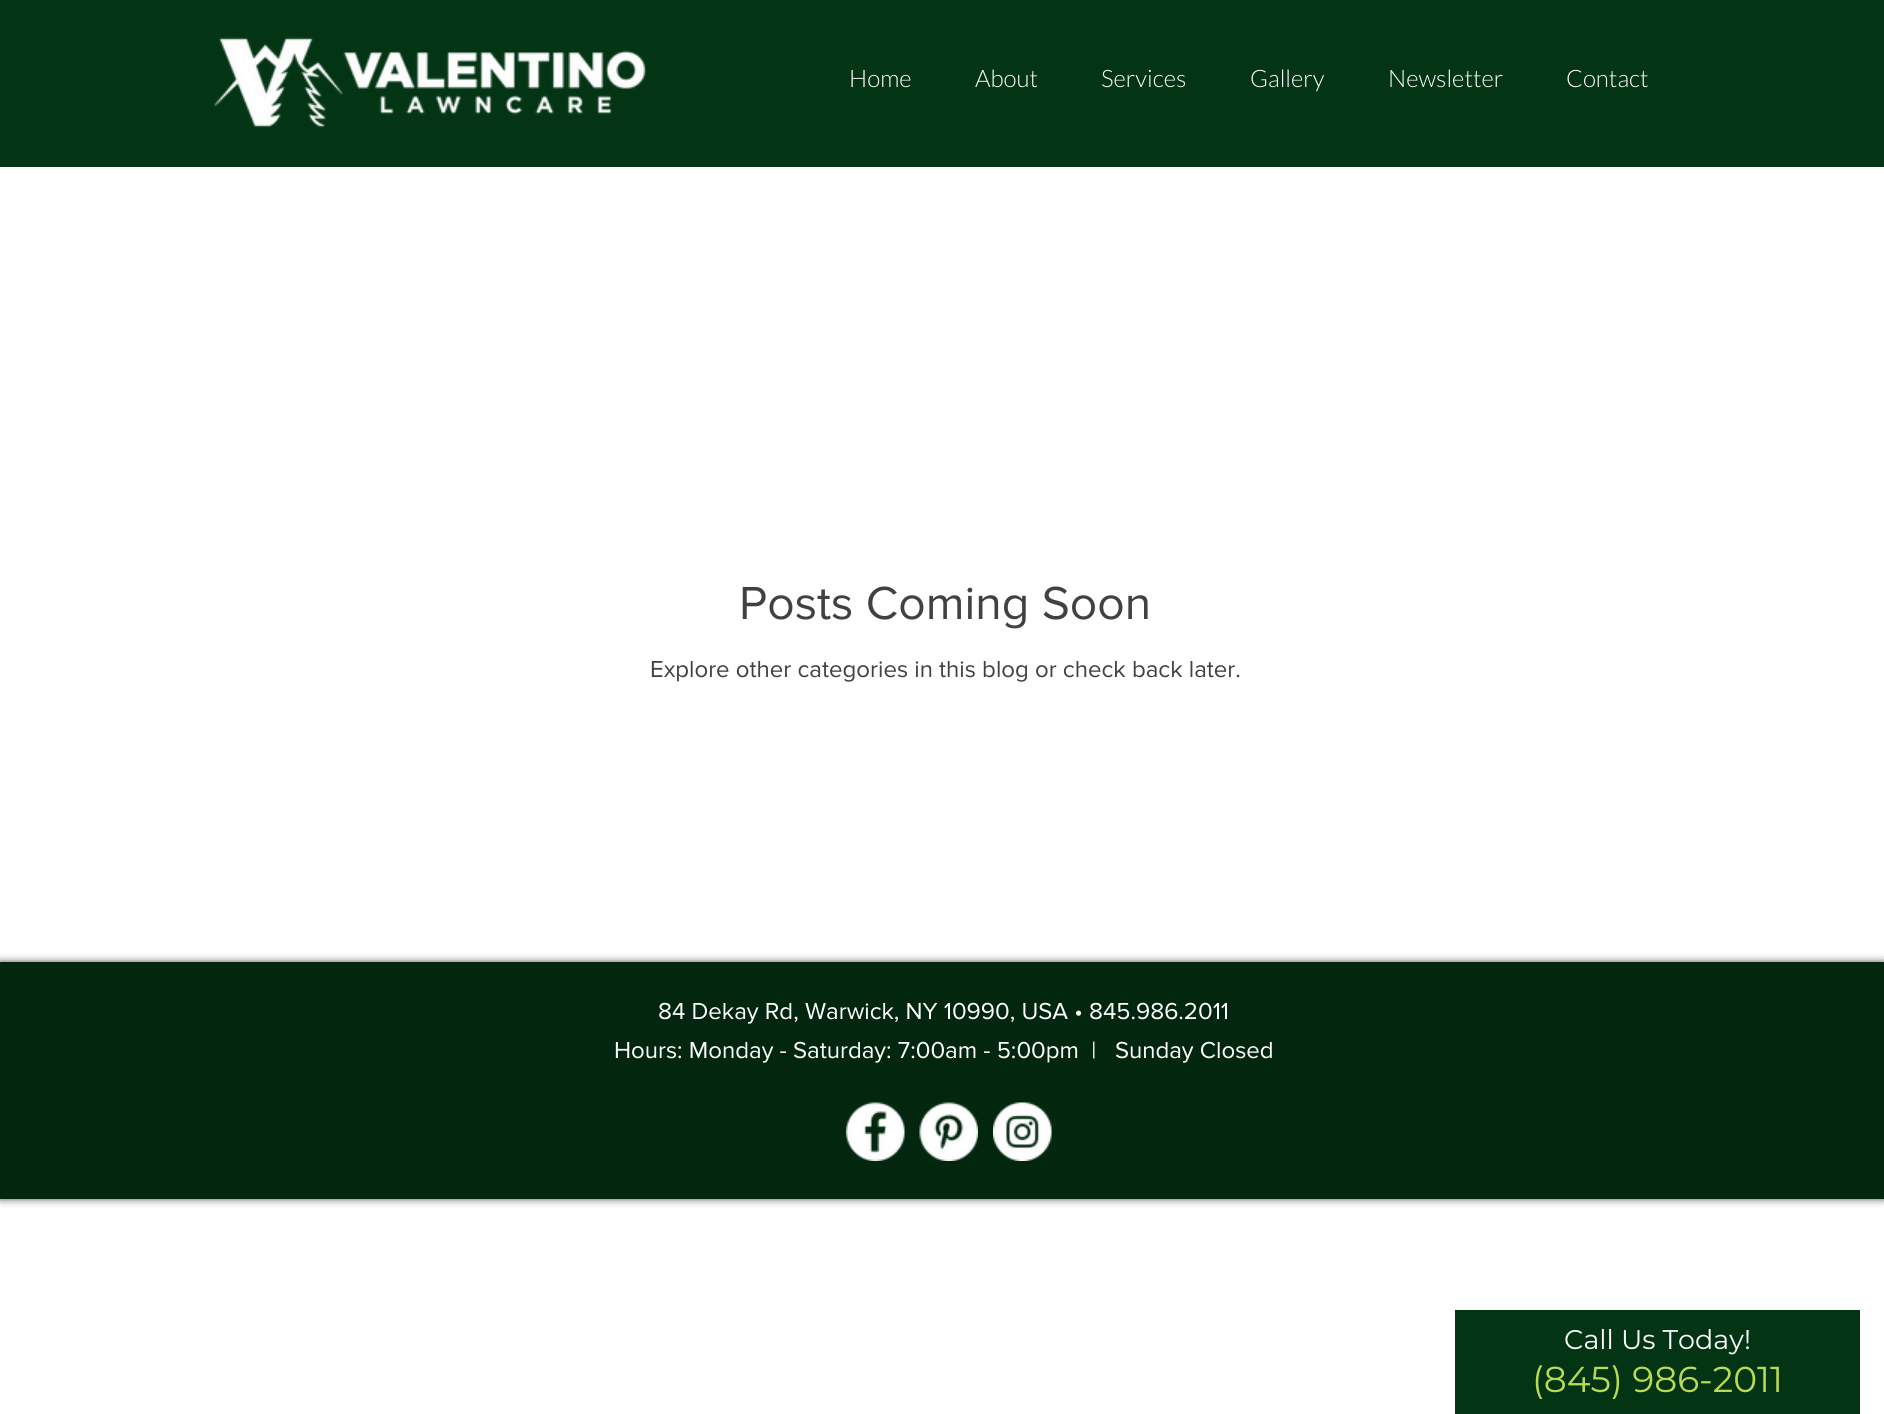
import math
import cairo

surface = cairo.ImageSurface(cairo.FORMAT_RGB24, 1884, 1414)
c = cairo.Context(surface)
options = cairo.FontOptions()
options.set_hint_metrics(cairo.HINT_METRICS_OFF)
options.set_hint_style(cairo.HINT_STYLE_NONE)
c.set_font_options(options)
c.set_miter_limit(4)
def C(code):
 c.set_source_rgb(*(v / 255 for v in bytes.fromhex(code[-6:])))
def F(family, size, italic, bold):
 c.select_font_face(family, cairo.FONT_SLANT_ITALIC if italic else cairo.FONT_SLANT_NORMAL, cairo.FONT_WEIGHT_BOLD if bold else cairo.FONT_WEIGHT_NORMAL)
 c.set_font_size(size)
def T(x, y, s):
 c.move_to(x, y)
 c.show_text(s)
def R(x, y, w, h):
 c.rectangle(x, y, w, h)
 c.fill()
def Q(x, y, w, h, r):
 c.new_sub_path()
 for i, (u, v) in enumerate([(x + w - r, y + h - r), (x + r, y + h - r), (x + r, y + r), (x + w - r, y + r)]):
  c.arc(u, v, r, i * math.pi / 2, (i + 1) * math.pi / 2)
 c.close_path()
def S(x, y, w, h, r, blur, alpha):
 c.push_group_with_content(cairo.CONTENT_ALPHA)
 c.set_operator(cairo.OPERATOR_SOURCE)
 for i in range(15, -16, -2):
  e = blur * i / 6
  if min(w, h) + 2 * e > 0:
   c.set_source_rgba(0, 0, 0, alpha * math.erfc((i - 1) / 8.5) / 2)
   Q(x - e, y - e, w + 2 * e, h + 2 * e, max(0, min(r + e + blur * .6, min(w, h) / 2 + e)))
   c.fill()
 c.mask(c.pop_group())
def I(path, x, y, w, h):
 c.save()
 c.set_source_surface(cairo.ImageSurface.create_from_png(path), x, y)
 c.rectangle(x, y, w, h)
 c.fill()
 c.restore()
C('ffffff')
c.paint()
C('033515')
R(0,0,1884,167)
I('1.png',214,37,433,91)
F('Lato Light',24,0,0)
C('ffffff')
T(849,87,'Home')
T(975,87,'About')
T(1101,87,'Services')
T(1250,87,'Gallery')
T(1388,87,'Newsletter')
T(1566,87,'Contact')
F('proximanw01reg',48,0,0)
C('414141')
T(739,619,'Posts Coming Soon')
F('proximanw01reg',24,0,0)
T(650,677,'Explore other categories in this blog or check back later.')
C('000000')
S(0,962,1884,237,0,4,.7)
C('03260f')
R(0,962,1884,237)
C('ffffff')
T(658,1019,'84 Dekay Rd, Warwick, NY 10990, USA • 845.986.2011')
T(614,1058,'Hours: Monday - Saturday: 7:00am - 5:00pm  |   Sunday Closed')
I('2.png',846,1102,59,59)
I('3.png',919,1102,59,59)
I('4.png',993,1102,59,59)
C('033515')
R(1455,1310,405,104)
F('Montserrat',27,0,0)
C('ffffff')
T(1564,1349,'Call Us Today!')
F('Montserrat',36,0,0)
C('bada55')
T(1532,1392,'(845) 986-2011')
surface.write_to_png('o.png')
